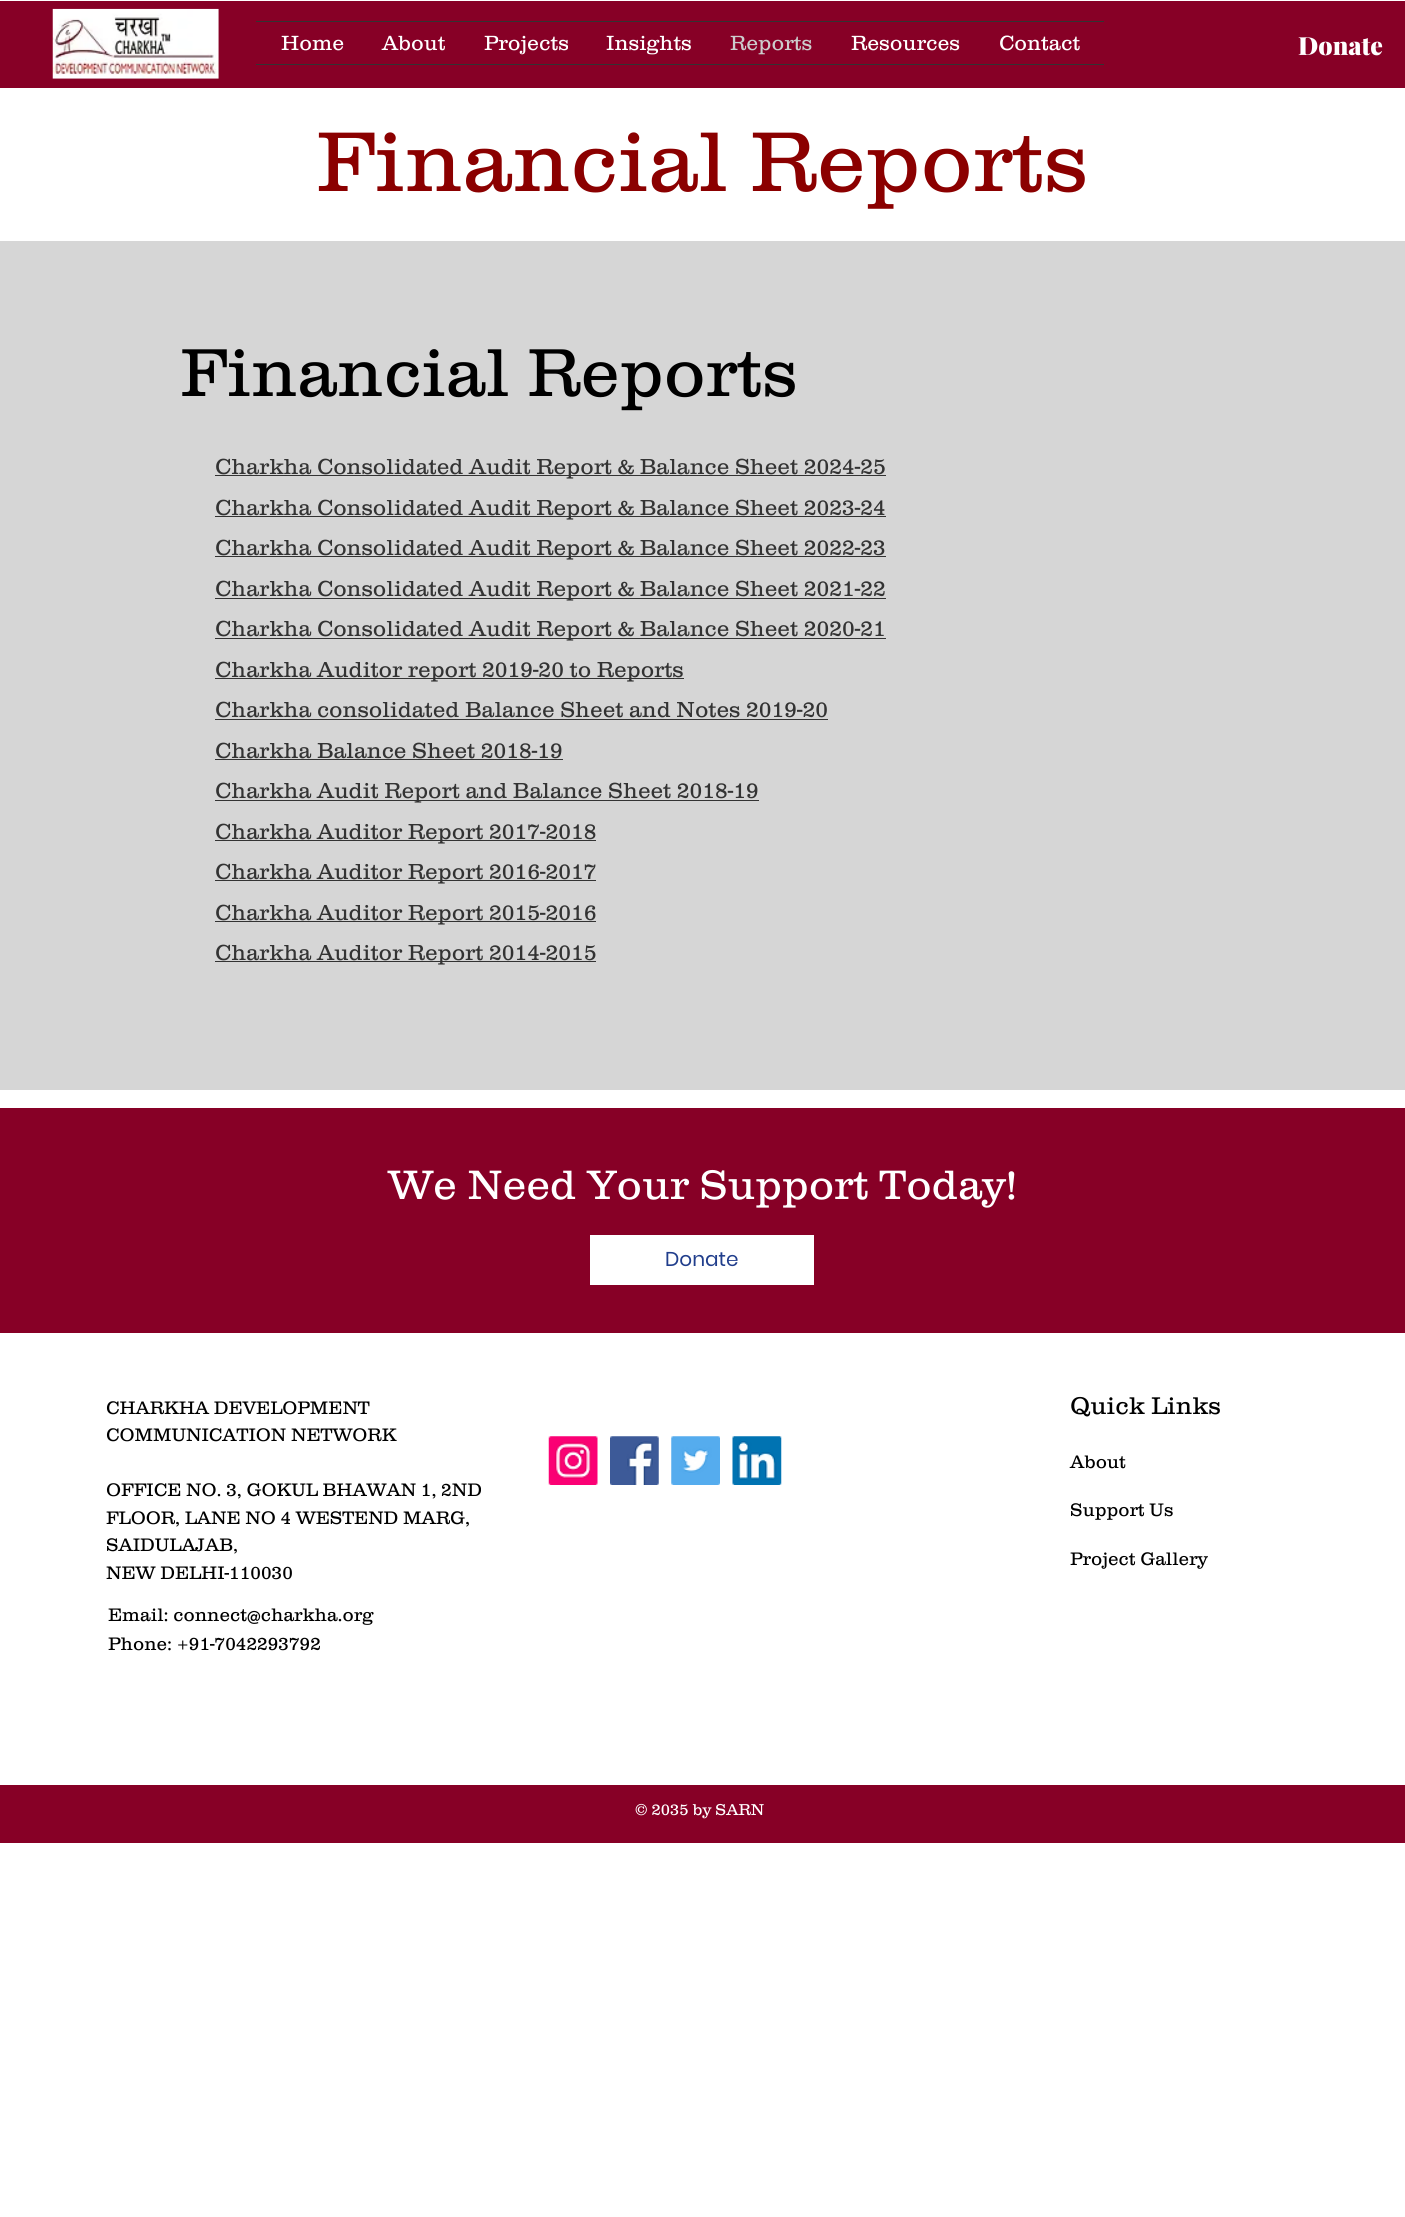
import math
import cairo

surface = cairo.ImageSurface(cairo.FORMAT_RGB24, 1405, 2217)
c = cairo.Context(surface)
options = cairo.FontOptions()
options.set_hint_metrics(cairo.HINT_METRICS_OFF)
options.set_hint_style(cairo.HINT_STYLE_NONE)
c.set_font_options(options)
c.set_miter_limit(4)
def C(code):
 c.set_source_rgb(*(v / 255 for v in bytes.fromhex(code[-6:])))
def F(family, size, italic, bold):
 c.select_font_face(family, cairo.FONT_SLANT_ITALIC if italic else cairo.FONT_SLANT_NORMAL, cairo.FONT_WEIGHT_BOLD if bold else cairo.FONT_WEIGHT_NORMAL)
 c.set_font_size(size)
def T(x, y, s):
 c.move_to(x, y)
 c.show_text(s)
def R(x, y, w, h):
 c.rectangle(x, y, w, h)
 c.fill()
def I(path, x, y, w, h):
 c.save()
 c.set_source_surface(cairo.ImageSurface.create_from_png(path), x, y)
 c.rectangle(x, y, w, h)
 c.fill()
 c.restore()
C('ffffff')
c.paint()
C('870026')
R(0,1,1405,87)
I('1.png',52,8,167,71)
C('333333')
R(256,21,848,1)
R(256,64,848,1)
F('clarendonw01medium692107 Light',21.25,0,0)
C('ffffff')
T(281,50,'Home')
T(382,50,'About')
T(484,50,'Projects')
T(606,50,'Insights')
C('cccccc')
T(730,50,'Reports')
C('ffffff')
T(851,50,'Resources')
T(999,50,'Contact')
F('Playfair Display Black',25,0,0)
T(1298,55,'Donate')
F('clarendonw01medium692107 Light',87.5,0,0)
C('8b0000')
T(316,191,'Financial Reports')
C('d6d6d6')
R(0,241,1405,849)
F('clarendonw01medium692107 Light',70,0,0)
C('000000')
T(180,396,'Financial Reports')
C('333333')
R(215,475,671,1)
F('clarendonw01medium692107 Light',22.5,0,0)
T(215,474,'Charkha Consolidated Audit Report & Balance Sheet 2024-25')
R(215,516,671,1)
T(215,515,'Charkha Consolidated Audit Report & Balance Sheet 2023-24')
R(215,556,671,1)
T(215,555,'Charkha Consolidated Audit Report & Balance Sheet 2022-23')
R(215,598,671,1)
T(215,596,'Charkha Consolidated Audit Report & Balance Sheet 2021-22')
R(215,638,671,1)
T(215,636,'Charkha Consolidated Audit Report & Balance Sheet 2020-21')
R(215,678,469,1)
T(215,677,'Charkha Auditor report 2019-20 to Reports')
T(215,717,'Charkha consolidated Balance Sheet and Notes 2019-20')
R(215,719,613,1)
T(215,758,'Charkha Balance Sheet 2018-19')
R(215,759,348,1)
R(215,800,544,1)
T(215,798,'Charkha Audit Report and Balance Sheet 2018-19')
R(215,840,381,1)
T(215,839,'Charkha Auditor Report 2017-2018')
R(215,880,381,1)
T(215,879,'Charkha Auditor Report 2016-2017')
R(215,921,381,1)
T(215,920,'Charkha Auditor Report 2015-2016')
R(215,961,381,1)
T(215,960,'Charkha Auditor Report 2014-2015')
C('870026')
R(0,1108,1405,225)
F('clarendonw01medium692107 Light',42.5,0,0)
C('ffffff')
T(388,1199,'We Need Your Support Today!')
R(590,1235,224,50)
F('Poppins',20,0,0)
C('213e8c')
T(665,1266,'Donate')
F('clarendonw01medium692107 Light',18.75,0,0)
C('000000')
T(106,1414,'CHARKHA DEVELOPMENT')
T(106,1441,'COMMUNICATION NETWORK')
T(106,1496,'OFFICE NO. 3, GOKUL BHAWAN 1, 2ND')
T(106,1524,'FLOOR, LANE NO 4 WESTEND MARG,')
T(106,1551,'SAIDULAJAB,')
T(106,1579,'NEW DELHI-110030')
T(108,1621,'Email: connect@charkha.org')
T(108,1650,'Phone: +91-7042293792')
I('2.png',548,1436,50,49)
I('3.png',610,1436,49,49)
I('4.png',671,1436,49,49)
I('5.png',732,1436,50,49)
F('clarendonw01medium692107 Light',25,0,0)
T(1070,1414,'Quick Links')
F('clarendonw01medium692107 Light',18.75,0,0)
T(1070,1468,'About')
T(1070,1516,'Support Us')
T(1070,1565,'Project Gallery')
C('870026')
R(0,1785,1405,58)
F('clarendonw01medium692107 Light',16.25,0,0)
C('ffffff')
T(635,1815,'© 2035 by SARN')
surface.write_to_png('o.png')
